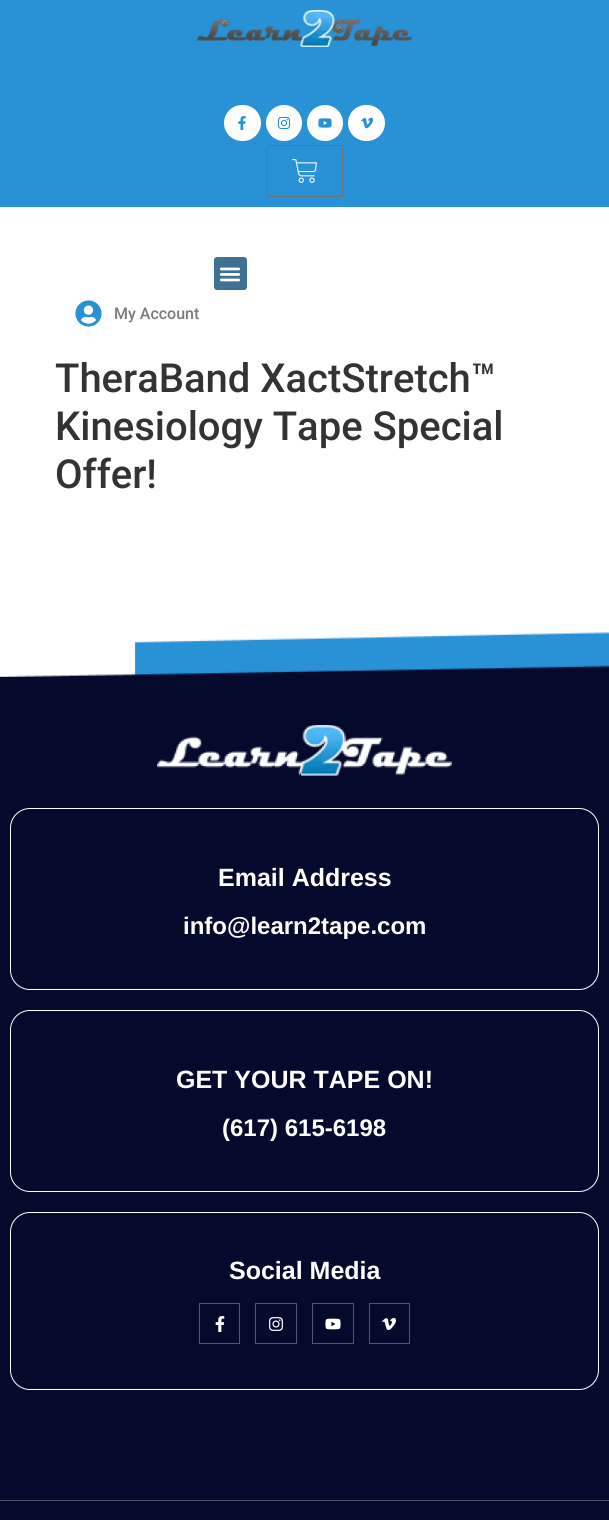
import math
import cairo

surface = cairo.ImageSurface(cairo.FORMAT_RGB24, 609, 1520)
c = cairo.Context(surface)
options = cairo.FontOptions()
options.set_hint_metrics(cairo.HINT_METRICS_OFF)
options.set_hint_style(cairo.HINT_STYLE_NONE)
c.set_font_options(options)
c.set_miter_limit(4)
def C(code):
 c.set_source_rgb(*(v / 255 for v in bytes.fromhex(code[-6:])))
def F(family, size, italic, bold):
 c.select_font_face(family, cairo.FONT_SLANT_ITALIC if italic else cairo.FONT_SLANT_NORMAL, cairo.FONT_WEIGHT_BOLD if bold else cairo.FONT_WEIGHT_NORMAL)
 c.set_font_size(size)
def T(x, y, s):
 c.move_to(x, y)
 c.show_text(s)
def R(x, y, w, h):
 c.rectangle(x, y, w, h)
 c.fill()
def Q(x, y, w, h, r):
 c.new_sub_path()
 for i, (u, v) in enumerate([(x + w - r, y + h - r), (x + r, y + h - r), (x + r, y + r), (x + w - r, y + r)]):
  c.arc(u, v, r, i * math.pi / 2, (i + 1) * math.pi / 2)
 c.close_path()
def I(path, x, y, w, h):
 c.save()
 c.set_source_surface(cairo.ImageSurface.create_from_png(path), x, y)
 c.rectangle(x, y, w, h)
 c.fill()
 c.restore()
C('ffffff')
c.paint()
C('2991d6')
R(0,0,609,207)
I('1.png',197,10,215,37)
C('ffffff')
Q(224,105,37,36,18)
c.fill()
I('2.png',238,116,8,14)
c.arc(284,123,18,0,2 * math.pi)
c.fill()
I('3.png',277,116,14,14)
c.arc(325,123,18,0,2 * math.pi)
c.fill()
I('4.png',318,118,14,10)
Q(348,105,37,36,18)
c.fill()
I('5.png',361,117,13,12)
c.rectangle(267.5,145.5,75,51)
C('69727d')
c.set_line_width(1)
c.stroke()
I('6.png',292,159,25,24)
C('3e7192')
Q(214,257,33,33,3)
c.fill()
I('7.png',219,267,22,15)
I('8.png',75,300,27,27)
F('Roboto Medium',16,0,0)
C('7a7a7a')
T(114,319,'My Account')
F('Roboto Medium',40,0,0)
C('333333')
T(55,392,'TheraBand XactStretch™')
T(55,440,'Kinesiology Tape Special')
T(55,488,'Offer!')
I('9.png',0,632,609,888)
I('10.png',157,725,295,51)
Q(10.5,808.5,588,181,19.5)
C('ffffff')
c.stroke()
F('Liberation Sans',25,0,1)
T(218,886,'Email Address')
F('Liberation Sans',24,0,1)
T(183,934,'info@learn2tape.com')
Q(10.5,1010.5,588,181,19.5)
c.stroke()
F('Liberation Sans',25,0,1)
T(176,1088,'GET YOUR TAPE ON!')
F('Liberation Sans',24,0,1)
T(222,1136,'(617) 615-6198')
Q(10.5,1212.5,588,177,19.5)
c.stroke()
F('Liberation Sans',25,0,1)
T(229,1279,'Social Media')
c.rectangle(199.5,1303.5,40,40)
C('54566e')
c.stroke()
I('11.png',215,1316,10,16)
c.rectangle(255.5,1303.5,41,40)
c.stroke()
I('12.png',269,1317,14,14)
c.rectangle(312.5,1303.5,41,40)
c.stroke()
I('13.png',325,1318,16,12)
c.rectangle(369.5,1303.5,40,40)
c.stroke()
I('14.png',382,1318,14,13)
R(0,1500,609,1)
surface.write_to_png('o.png')
